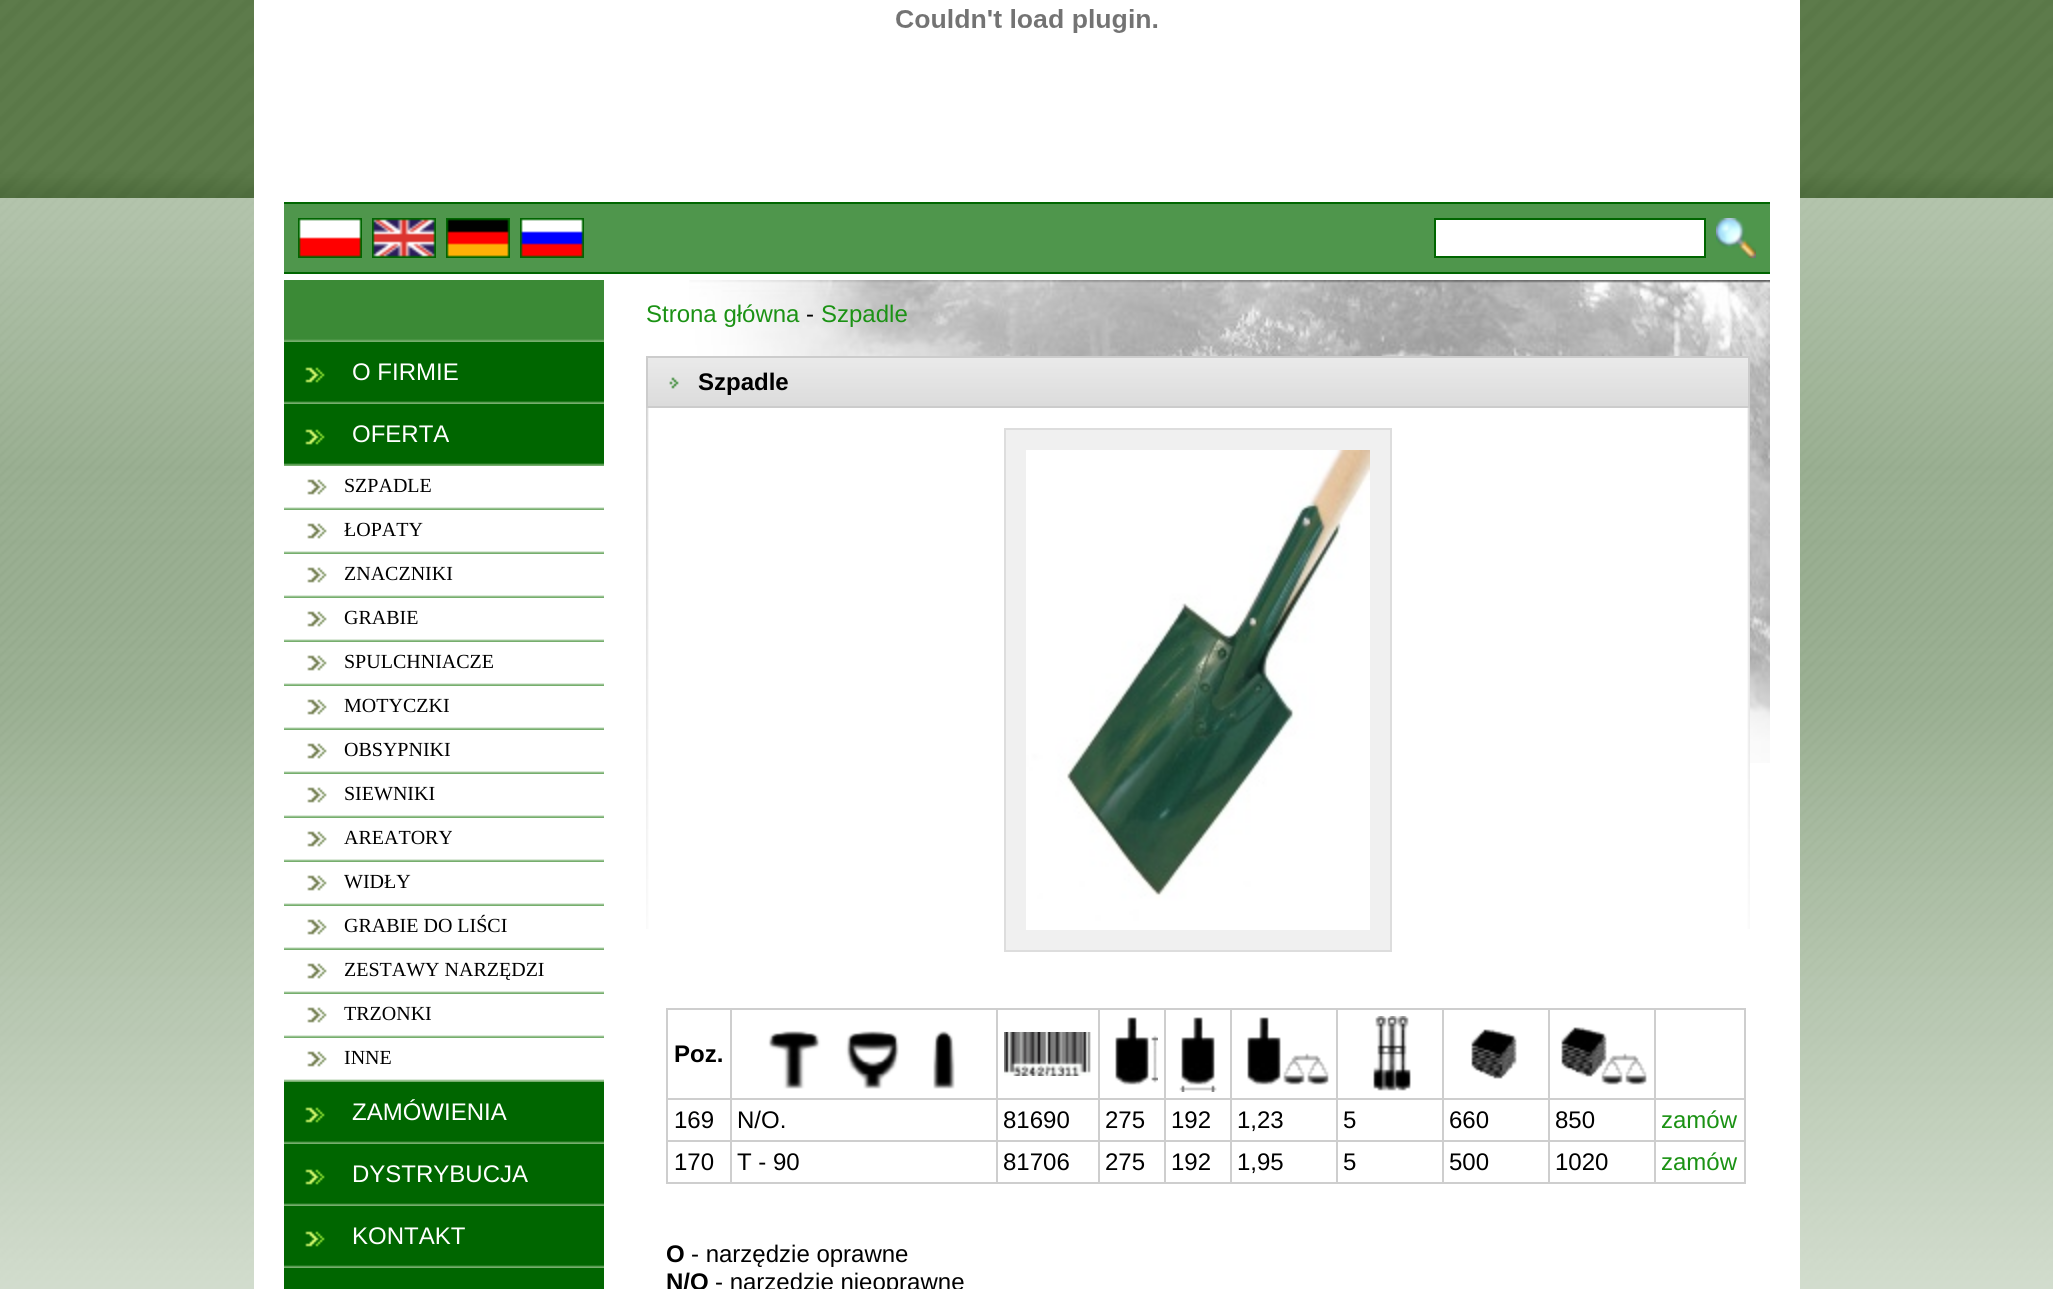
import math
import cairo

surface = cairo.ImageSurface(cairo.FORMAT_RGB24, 2053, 1289)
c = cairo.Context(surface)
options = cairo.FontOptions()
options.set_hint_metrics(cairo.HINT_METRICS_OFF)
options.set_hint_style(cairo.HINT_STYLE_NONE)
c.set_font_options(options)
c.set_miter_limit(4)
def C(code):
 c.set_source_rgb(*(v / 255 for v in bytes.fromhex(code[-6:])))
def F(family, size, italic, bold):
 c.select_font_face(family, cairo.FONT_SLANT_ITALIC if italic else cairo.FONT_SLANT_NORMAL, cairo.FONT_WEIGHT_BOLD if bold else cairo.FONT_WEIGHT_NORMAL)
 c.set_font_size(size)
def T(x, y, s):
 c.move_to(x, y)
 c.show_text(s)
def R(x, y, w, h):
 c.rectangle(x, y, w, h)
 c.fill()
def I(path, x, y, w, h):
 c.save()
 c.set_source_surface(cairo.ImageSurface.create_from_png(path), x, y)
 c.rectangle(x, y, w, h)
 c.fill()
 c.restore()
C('ffffff')
c.paint()
I('1.png',0,198,2053,1091)
I('2.png',0,0,2053,198)
C('ffffff')
R(254,0,1546,1289)
I('3.png',896,9,262,24)
C('4f964c')
R(284,204,1486,68)
C('006600')
R(284,202,1486,2)
R(284,272,1486,2)
I('4.png',298,218,64,40)
I('5.png',372,218,64,40)
I('6.png',446,218,64,40)
I('7.png',520,218,64,40)
C('ffffff')
c.rectangle(1435,219,270,38)
c.fill_preserve()
C('006600')
c.stroke()
I('8.png',1716,218,40,40)
I('9.png',284,280,320,62)
I('10.png',284,342,320,62)
F('Liberation Sans',24,0,0)
C('ffffff')
T(352,380,'O FIRMIE')
I('10.png',284,404,320,62)
T(352,442,'OFERTA')
I('11.png',284,479,320,31)
F('Liberation Serif',20,0,0)
C('000000')
T(344,492,'SZPADLE')
I('11.png',284,523,320,31)
T(344,536,'ŁOPATY')
I('11.png',284,567,320,31)
T(344,580,'ZNACZNIKI')
I('11.png',284,611,320,31)
T(344,624,'GRABIE')
I('11.png',284,655,320,31)
T(344,668,'SPULCHNIACZE')
I('11.png',284,699,320,31)
T(344,712,'MOTYCZKI')
I('11.png',284,743,320,31)
T(344,756,'OBSYPNIKI')
I('11.png',284,787,320,31)
T(344,800,'SIEWNIKI')
I('11.png',284,831,320,31)
T(344,844,'AREATORY')
I('11.png',284,875,320,31)
T(344,888,'WIDŁY')
I('11.png',284,919,320,31)
T(344,932,'GRABIE DO LIŚCI')
I('11.png',284,963,320,31)
T(344,976,'ZESTAWY NARZĘDZI')
I('11.png',284,1007,320,31)
T(344,1020,'TRZONKI')
I('11.png',284,1051,320,31)
T(344,1064,'INNE')
I('10.png',284,1082,320,62)
F('Liberation Sans',24,0,0)
C('ffffff')
T(352,1120,'ZAMÓWIENIA')
I('10.png',284,1144,320,62)
T(352,1182,'DYSTRYBUCJA')
I('10.png',284,1206,320,62)
T(352,1244,'KONTAKT')
C('006600')
R(284,1268,320,21)
I('12.png',689,280,1081,483)
C('1b9214')
T(646,322,'Strona główna')
C('000000')
T(806,322,'-')
C('1b9214')
T(821,322,'Szpadle')
I('13.png',648,358,1100,48)
c.rectangle(647,357,1102,50)
C('cccccc')
c.stroke()
F('Liberation Sans',24,0,1)
C('000000')
T(698,390,'Szpadle')
I('14.png',646,408,1104,521)
C('f0f0f0')
c.rectangle(1005,429,386,522)
c.fill_preserve()
C('dddddd')
c.stroke()
I('15.png',1026,450,344,480)
C('cecece')
R(1654,1008,92,2)
R(1654,1098,92,2)
R(1654,1140,92,2)
R(1744,1140,2,44)
R(1654,1182,92,2)
R(1654,1140,2,44)
R(1548,1140,108,2)
R(1654,1098,2,44)
R(1548,1098,108,2)
R(1654,1008,2,92)
R(1548,1008,108,2)
R(1548,1182,108,2)
R(1548,1140,2,44)
R(1442,1140,108,2)
R(1548,1098,2,44)
R(1442,1098,108,2)
R(1548,1008,2,92)
R(1442,1008,108,2)
R(1442,1182,108,2)
R(1442,1140,2,44)
R(1336,1140,108,2)
R(1442,1098,2,44)
R(1336,1098,108,2)
R(1442,1008,2,92)
R(1336,1008,108,2)
R(1336,1182,108,2)
R(1336,1140,2,44)
R(1230,1140,108,2)
R(1336,1098,2,44)
R(1230,1098,108,2)
R(1336,1008,2,92)
R(1230,1008,108,2)
R(1230,1182,108,2)
R(1230,1140,2,44)
R(1164,1140,68,2)
R(1230,1098,2,44)
R(1164,1098,68,2)
R(1230,1008,2,92)
R(1164,1008,68,2)
R(1164,1182,68,2)
R(1164,1140,2,44)
R(1098,1140,68,2)
R(1164,1098,2,44)
R(1098,1098,68,2)
R(1164,1008,2,92)
R(1098,1008,68,2)
R(1098,1182,68,2)
R(1098,1140,2,44)
R(996,1140,104,2)
R(1098,1098,2,44)
R(996,1098,104,2)
R(1098,1008,2,92)
R(996,1008,104,2)
R(996,1182,104,2)
R(996,1140,2,44)
R(730,1140,268,2)
R(996,1098,2,44)
R(730,1098,268,2)
R(996,1008,2,92)
R(730,1008,268,2)
R(730,1182,268,2)
R(730,1140,2,44)
R(666,1140,66,2)
R(730,1098,2,44)
R(666,1098,66,2)
R(730,1008,2,92)
R(666,1008,66,2)
R(666,1182,66,2)
R(666,1140,2,44)
R(666,1098,2,44)
R(666,1008,2,92)
C('000000')
T(674,1062,'Poz.')
I('16.png',768,1031,187,58)
I('17.png',1004,1032,87,44)
I('18.png',1115,1017,43,68)
I('19.png',1179,1017,38,75)
I('20.png',1247,1017,82,68)
I('21.png',1373,1016,38,75)
I('22.png',1471,1029,46,50)
I('23.png',1561,1027,86,58)
C('cecece')
R(1744,1098,2,44)
R(1744,1008,2,92)
F('Liberation Sans',24,0,0)
C('000000')
T(674,1128,'169')
T(737,1128,'N/O.')
T(1003,1128,'81690')
T(1105,1128,'275')
T(1171,1128,'192')
T(1237,1128,'1,23')
T(1343,1128,'5')
T(1449,1128,'660')
T(1555,1128,'850')
C('1b9214')
T(1661,1128,'zamów')
C('000000')
T(674,1170,'170')
T(737,1170,'T - 90')
T(1003,1170,'81706')
T(1105,1170,'275')
T(1171,1170,'192')
T(1237,1170,'1,95')
T(1343,1170,'5')
T(1449,1170,'500')
T(1555,1170,'1020')
C('1b9214')
T(1661,1170,'zamów')
F('Liberation Sans',24,0,1)
C('000000')
T(666,1262,'O')
F('Liberation Sans',24,0,0)
T(691,1262,'- narzędzie oprawne')
F('Liberation Sans',24,0,1)
T(666,1290,'N/O')
F('Liberation Sans',24,0,0)
T(715,1290,'- narzędzie nieoprawne')
surface.write_to_png('o.png')
